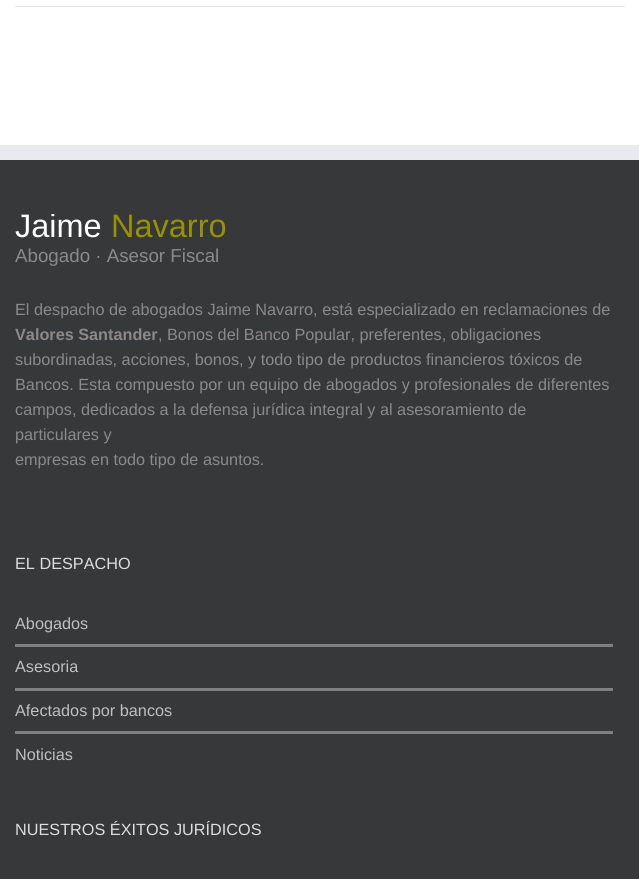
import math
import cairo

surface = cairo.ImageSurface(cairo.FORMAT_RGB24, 639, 879)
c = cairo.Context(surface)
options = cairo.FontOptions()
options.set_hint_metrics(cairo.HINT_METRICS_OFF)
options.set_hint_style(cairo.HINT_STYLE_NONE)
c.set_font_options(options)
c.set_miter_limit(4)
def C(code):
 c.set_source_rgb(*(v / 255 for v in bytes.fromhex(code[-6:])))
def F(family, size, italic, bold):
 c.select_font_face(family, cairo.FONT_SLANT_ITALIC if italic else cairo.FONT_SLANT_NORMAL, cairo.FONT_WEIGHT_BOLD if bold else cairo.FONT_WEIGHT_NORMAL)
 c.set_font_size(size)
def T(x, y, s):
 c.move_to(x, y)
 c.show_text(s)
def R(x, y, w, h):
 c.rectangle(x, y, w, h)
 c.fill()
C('ffffff')
c.paint()
C('e6e5e6')
R(15,6,610,1)
C('363839')
R(0,160,639,719)
C('e9eaee')
R(0,145,639,15)
c.save()
c.rectangle(15,214,610,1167)
c.clip()
F('Liberation Sans',32.5,0,0)
C('ffffff')
T(15,237,'Jaime')
c.restore()
F('Liberation Sans',32.5,0,0)
C('979200')
T(111,237,'Navarro')
F('Liberation Sans',18.75,0,0)
C('8c8989')
T(15,262,'Abogado · Asesor Fiscal')
F('Liberation Sans',16.25,0,0)
T(15,315,'El despacho de abogados Jaime Navarro, está especializado en reclamaciones de')
F('Liberation Sans',16.25,0,1)
T(15,340,'Valores Santander')
F('Liberation Sans',16.25,0,0)
T(158,340,', Bonos del Banco Popular, preferentes, obligaciones')
T(15,365,'subordinadas, acciones, bonos, y todo tipo de productos financieros tóxicos de')
T(15,390,'Bancos. Esta compuesto por un equipo de abogados y profesionales de diferentes')
T(15,415,'campos, dedicados a la defensa jurídica integral y al asesoramiento de')
T(15,440,'particulares y')
T(15,465,'empresas en todo tipo de asuntos.')
C('dddddd')
T(15,569,'EL DESPACHO')
C('bfbfbf')
T(15,629,'Abogados')
C('808080')
R(15,644,598,3)
C('bfbfbf')
T(15,672,'Asesoria')
C('808080')
R(15,688,598,3)
C('bfbfbf')
T(15,716,'Afectados por bancos')
C('808080')
R(15,731,598,3)
C('bfbfbf')
T(15,760,'Noticias')
C('dddddd')
T(15,835,'NUESTROS ÉXITOS JURÍDICOS')
surface.write_to_png('o.png')
